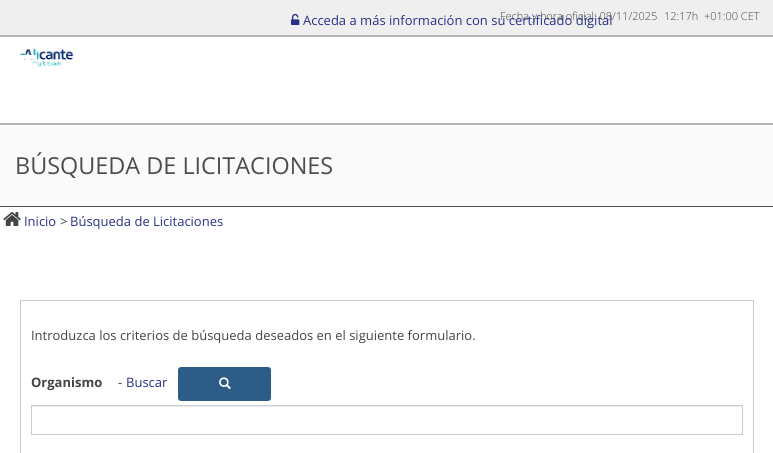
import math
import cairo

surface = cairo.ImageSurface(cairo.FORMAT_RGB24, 773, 453)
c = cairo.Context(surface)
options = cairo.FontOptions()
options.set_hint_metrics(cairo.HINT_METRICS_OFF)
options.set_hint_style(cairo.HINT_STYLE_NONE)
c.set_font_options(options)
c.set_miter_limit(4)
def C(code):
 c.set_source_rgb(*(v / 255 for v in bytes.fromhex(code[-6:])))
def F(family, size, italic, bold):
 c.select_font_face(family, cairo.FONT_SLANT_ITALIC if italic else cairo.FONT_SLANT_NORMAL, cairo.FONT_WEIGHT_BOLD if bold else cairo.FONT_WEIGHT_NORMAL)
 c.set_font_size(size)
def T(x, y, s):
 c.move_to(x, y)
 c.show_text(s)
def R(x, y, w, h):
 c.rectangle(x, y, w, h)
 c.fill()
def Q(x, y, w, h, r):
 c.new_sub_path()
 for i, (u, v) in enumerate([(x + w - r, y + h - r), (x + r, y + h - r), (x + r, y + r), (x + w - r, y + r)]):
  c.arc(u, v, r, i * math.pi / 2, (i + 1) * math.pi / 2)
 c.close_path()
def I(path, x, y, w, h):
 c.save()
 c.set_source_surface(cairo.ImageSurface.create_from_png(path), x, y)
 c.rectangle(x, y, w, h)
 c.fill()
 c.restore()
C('ffffff')
c.paint()
C('efefef')
R(0,0,773,35)
I('1.png',291,13,9,12)
F('Open Sans Light',11,0,0)
C('444444')
T(500,20,'Fecha y hora oficial: 08/11/2025')
F('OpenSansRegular',13,0,0)
C('293188')
T(303,25,'Acceda a más información con su certificado digital')
I('5.png',20,48,54,19)
I('2.png',20,55,17,11)
C('fafafa')
R(0,126,773,80)
C('4d4d4d')
R(0,206,773,1)
F('OpenSansRegular',23.4,0,0)
T(15,174,'BÚSQUEDA DE LICITACIONES')
I('3.png',3,212,18,14)
F('OpenSansRegular',13,0,0)
C('293188')
T(24,226,'Inicio')
C('444444')
T(60,226,'>')
C('293188')
T(70,226,'Búsqueda de Licitaciones')
c.rectangle(20.5,300.5,733,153)
C('cccccc')
c.set_line_width(1)
c.stroke()
C('444444')
T(31,340,'Introduzca los criterios de búsqueda deseados en el siguiente formulario.')
F('Open Sans',13,0,1)
T(31,387,'Organismo')
F('OpenSansRegular',13,0,0)
T(118,387,'-')
C('293188')
T(126,387,'Buscar')
C('2d5c88')
Q(178,367,93,34,3)
c.fill()
I('4.png',219,377,12,12)
C('ececec')
R(32,406,710,1)
c.rectangle(31.5,405.5,711,29)
C('cccccc')
c.stroke()
C('b7b5b6')
R(0,35,773,2)
R(0,123,773,2)
F('Open Sans Light',11,0,0)
C('444444')
T(664,20,'12:17h')
T(704,20,'+01:00 CET')
surface.write_to_png('o.png')
